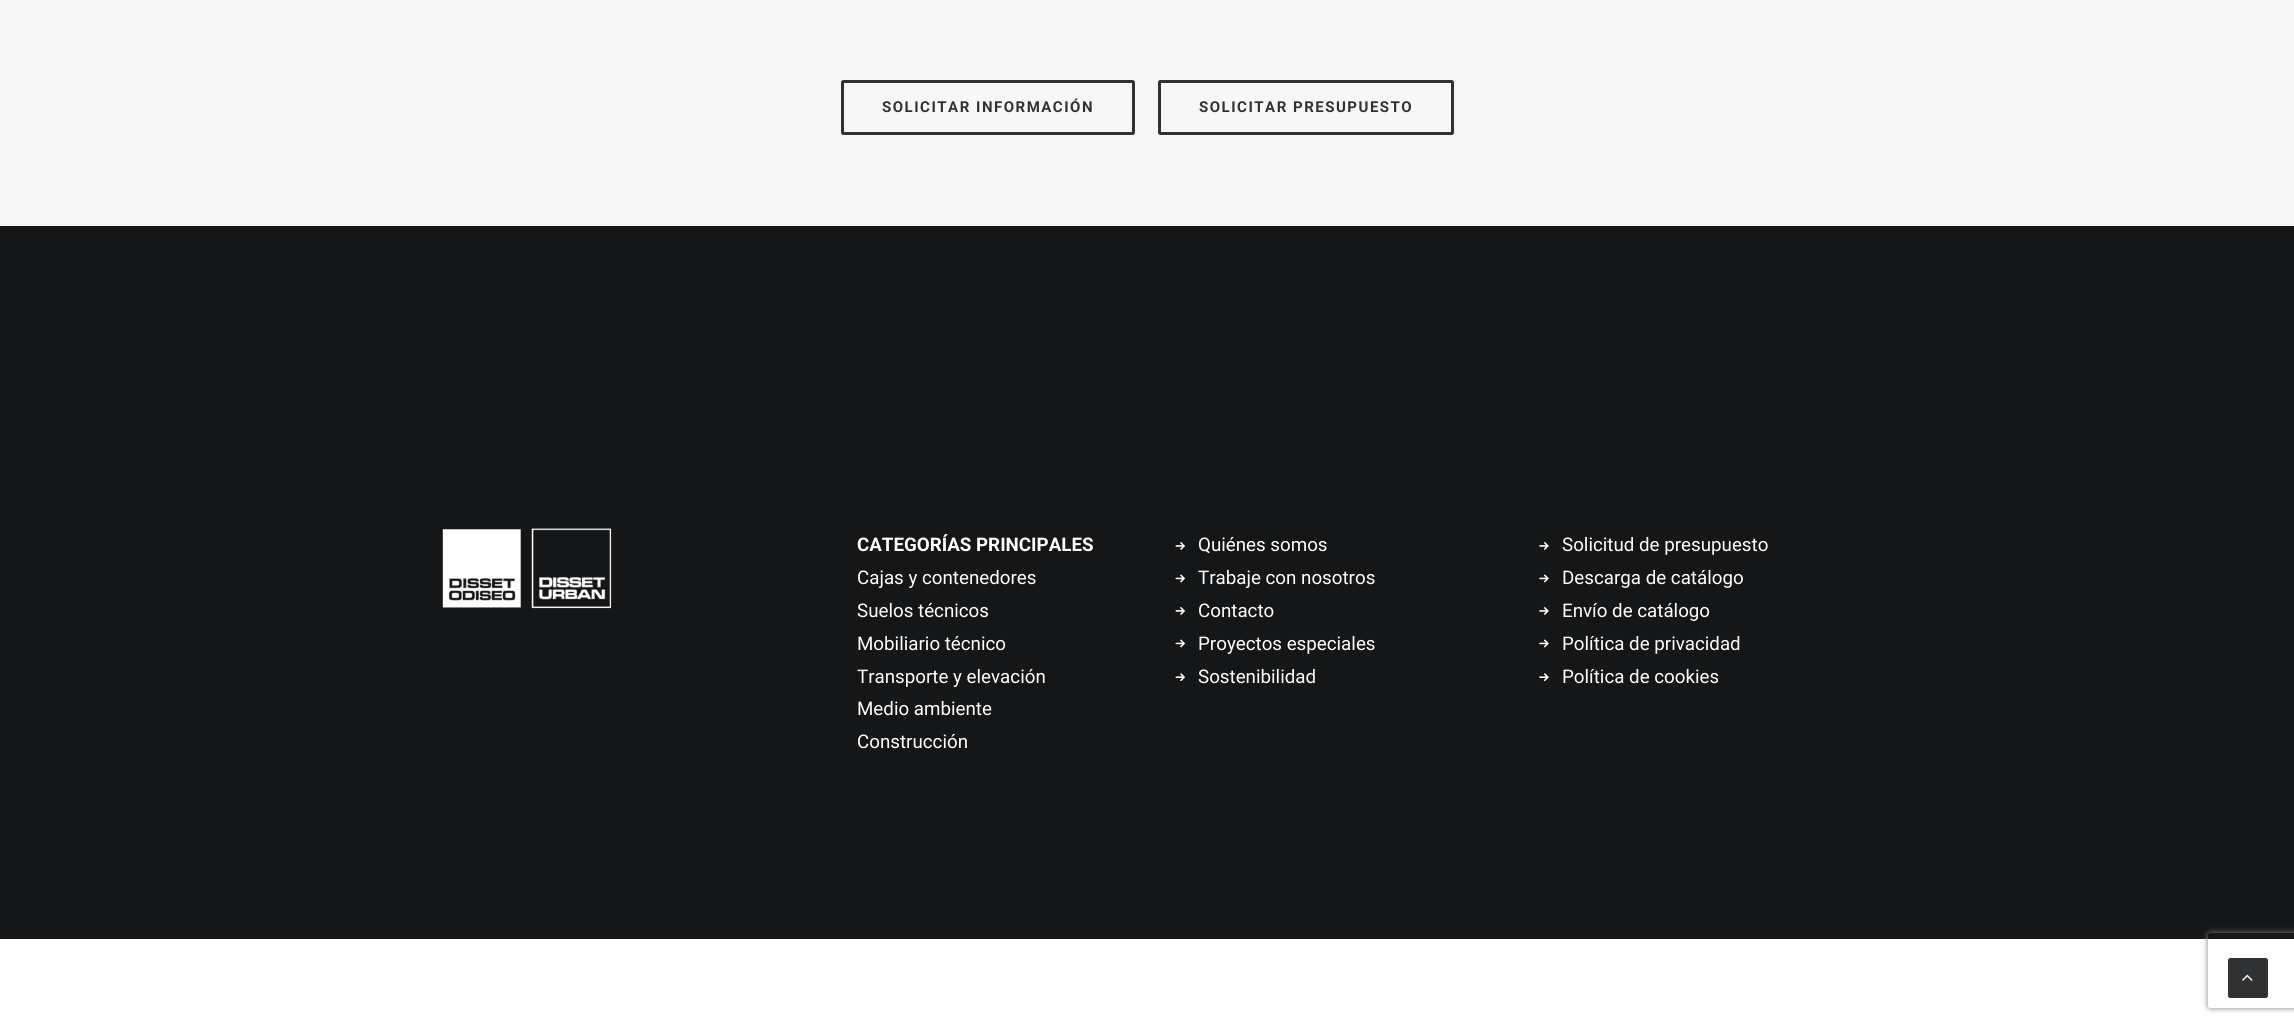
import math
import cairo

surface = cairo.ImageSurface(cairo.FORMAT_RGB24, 2294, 1025)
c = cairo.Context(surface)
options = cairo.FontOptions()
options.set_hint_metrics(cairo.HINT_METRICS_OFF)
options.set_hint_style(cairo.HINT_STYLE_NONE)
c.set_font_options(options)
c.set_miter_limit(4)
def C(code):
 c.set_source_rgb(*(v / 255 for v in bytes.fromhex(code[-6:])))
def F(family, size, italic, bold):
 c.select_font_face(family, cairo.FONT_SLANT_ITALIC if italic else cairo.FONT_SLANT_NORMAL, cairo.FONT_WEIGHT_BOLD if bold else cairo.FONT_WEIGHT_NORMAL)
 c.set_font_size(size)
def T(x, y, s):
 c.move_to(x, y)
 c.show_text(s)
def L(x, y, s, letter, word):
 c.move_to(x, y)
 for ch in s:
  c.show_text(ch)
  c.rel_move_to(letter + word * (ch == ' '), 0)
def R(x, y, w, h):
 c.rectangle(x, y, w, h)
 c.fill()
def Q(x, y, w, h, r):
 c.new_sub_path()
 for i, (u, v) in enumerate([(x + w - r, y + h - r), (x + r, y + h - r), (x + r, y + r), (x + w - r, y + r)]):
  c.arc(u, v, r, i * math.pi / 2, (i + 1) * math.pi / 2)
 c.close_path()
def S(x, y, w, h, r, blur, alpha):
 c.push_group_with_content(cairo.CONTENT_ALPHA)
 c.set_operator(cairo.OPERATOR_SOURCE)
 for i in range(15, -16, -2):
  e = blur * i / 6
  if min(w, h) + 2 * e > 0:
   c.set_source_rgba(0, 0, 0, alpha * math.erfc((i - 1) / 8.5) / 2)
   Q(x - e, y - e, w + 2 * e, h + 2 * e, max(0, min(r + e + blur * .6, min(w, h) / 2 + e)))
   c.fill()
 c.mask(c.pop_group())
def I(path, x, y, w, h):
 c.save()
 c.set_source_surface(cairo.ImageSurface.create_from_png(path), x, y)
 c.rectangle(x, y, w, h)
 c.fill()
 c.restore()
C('141618')
c.paint()
C('f7f7f7')
R(0,0,2294,226)
Q(842.5,81.5,291,52,1)
C('303133')
c.set_line_width(3)
c.stroke()
F('Roboto',15,0,1)
L(882,112,'SOLICITAR INFORMACIÓN',1.5,0)
Q(1159.5,81.5,293,52,1)
c.stroke()
L(1199,112,'SOLICITAR PRESUPUESTO',1.5,0)
I('1.png',442,528,170,81)
F('Roboto',18.75,0,1)
C('ffffff')
T(857,551,'CATEGORÍAS PRINCIPALES')
F('Roboto',18.75,0,0)
T(857,584,'Cajas y contenedores')
T(857,617,'Suelos técnicos')
T(857,650,'Mobiliario técnico')
T(857,683,'Transporte y elevación')
T(857,715,'Medio ambiente')
T(857,748,'Construcción')
I('2.png',1175,542,10,8)
T(1198,551,'Quiénes somos')
I('3.png',1175,574,11,9)
T(1198,584,'Trabaje con nosotros')
I('2.png',1175,607,10,8)
T(1198,617,'Contacto')
I('3.png',1175,639,11,9)
T(1198,650,'Proyectos especiales')
I('4.png',1175,673,11,8)
T(1198,683,'Sostenibilidad')
I('5.png',1539,542,10,8)
T(1562,551,'Solicitud de presupuesto')
I('6.png',1539,574,10,9)
T(1562,584,'Descarga de catálogo')
I('5.png',1539,607,10,8)
T(1562,617,'Envío de catálogo')
I('6.png',1539,639,10,9)
T(1562,650,'Política de privacidad')
I('7.png',1539,673,10,9)
T(1562,683,'Política de cookies')
R(0,939,2294,86)
c.save()
c.set_fill_rule(cairo.FILL_RULE_EVEN_ODD)
c.new_path()
c.move_to(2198,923)
c.line_to(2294,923)
c.line_to(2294,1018)
c.line_to(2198,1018)
c.close_path()
c.move_to(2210.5,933)
c.line_to(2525.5,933)
c.curve_to(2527,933,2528,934,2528,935.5)
c.line_to(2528,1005.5)
c.curve_to(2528,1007,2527,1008,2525.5,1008)
c.line_to(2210.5,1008)
c.curve_to(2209,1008,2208,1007,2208,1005.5)
c.line_to(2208,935.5)
c.curve_to(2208,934,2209,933,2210.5,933)
c.close_path()
c.clip()
C('808080')
S(2208,933,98,75,2.5,3,1)
c.restore()
C('303133')
Q(2228.5,958.5,39,39,2)
c.fill_preserve()
c.set_line_width(1)
c.stroke()
I('8.png',2242,974,11,7)
surface.write_to_png('o.png')
